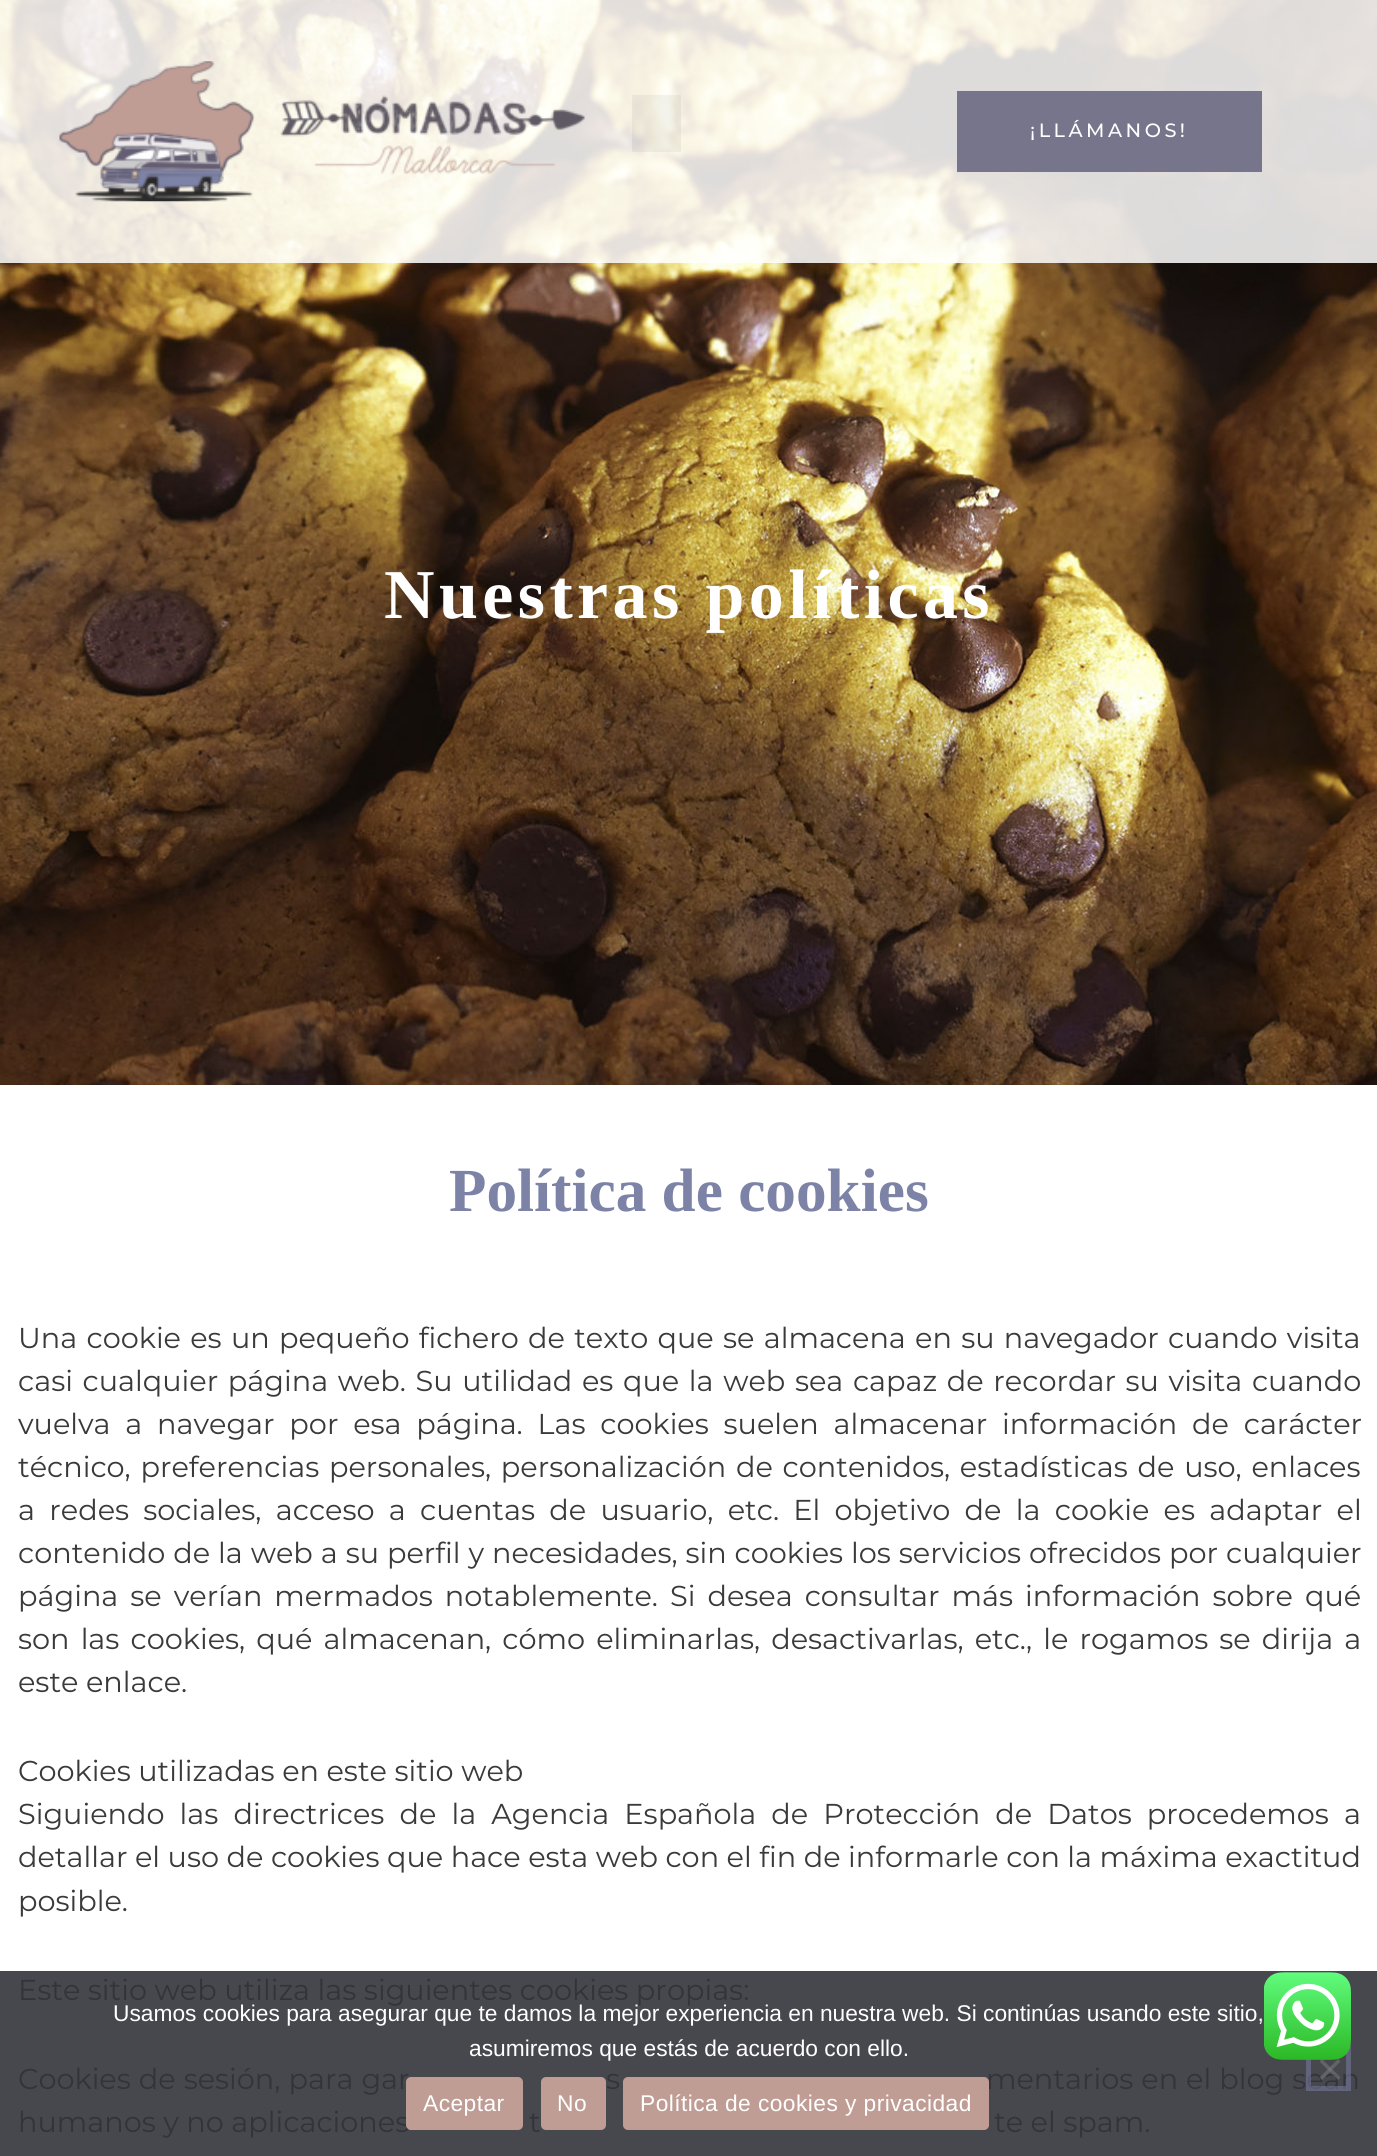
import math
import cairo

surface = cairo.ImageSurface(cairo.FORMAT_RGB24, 1377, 2156)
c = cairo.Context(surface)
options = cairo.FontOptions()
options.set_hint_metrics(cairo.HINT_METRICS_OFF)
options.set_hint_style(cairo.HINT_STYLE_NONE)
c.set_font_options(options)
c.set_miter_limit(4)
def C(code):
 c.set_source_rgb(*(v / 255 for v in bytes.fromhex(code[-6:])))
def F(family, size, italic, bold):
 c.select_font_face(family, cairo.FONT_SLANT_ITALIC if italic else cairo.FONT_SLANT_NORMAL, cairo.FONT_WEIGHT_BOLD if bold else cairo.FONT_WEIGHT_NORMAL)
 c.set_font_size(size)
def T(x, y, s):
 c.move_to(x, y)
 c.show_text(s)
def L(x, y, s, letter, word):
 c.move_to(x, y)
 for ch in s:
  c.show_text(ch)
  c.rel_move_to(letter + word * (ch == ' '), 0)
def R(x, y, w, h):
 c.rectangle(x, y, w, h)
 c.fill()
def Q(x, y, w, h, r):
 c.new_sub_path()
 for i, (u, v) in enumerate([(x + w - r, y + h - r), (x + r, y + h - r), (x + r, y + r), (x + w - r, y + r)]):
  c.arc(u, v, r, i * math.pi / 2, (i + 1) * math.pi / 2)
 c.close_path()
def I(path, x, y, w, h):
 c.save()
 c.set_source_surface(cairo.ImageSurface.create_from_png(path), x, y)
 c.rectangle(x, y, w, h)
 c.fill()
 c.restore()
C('ffffff')
c.paint()
C('47474e')
R(0,1971,1377,185)
I('2.png',0,0,1377,1085)
c.set_source_rgba(1,1,1,0.85)
R(0,0,1377,263)
I('1.png',59,61,526,141)
c.set_source_rgba(0,0,0,0.05)
R(632,95,49,57)
C('77758c')
R(957,91,305,81)
F('Montserrat Medium',19.25,0,0)
C('ffffff')
L(1030,137,'¡LLÁMANOS!',3.5,0)
F('Liberation Serif',70,0,1)
L(384,618,'Nuestras políticas',4.4,0)
F('Liberation Serif',61.25,0,1)
C('7c83a6')
T(449,1211,'Política de cookies')
F('Montserrat',28.75,0,0)
C('3a3a3a')
L(18,1348,'Una cookie es un pequeño fichero de texto que se almacena en su navegador cuando visita',0,1.75)
L(18,1391,'casi cualquier página web. Su utilidad es que la web sea capaz de recordar su visita cuando',0,2.1)
L(18,1434,'vuelva a navegar por esa página. Las cookies suelen almacenar información de carácter',0,7.25)
L(18,1477,'técnico, preferencias personales, personalización de contenidos, estadísticas de uso, enlaces',0,2.25)
L(18,1520,'a redes sociales, acceso a cuentas de usuario, etc. El objetivo de la cookie es adaptar el',0,6.75)
L(18,1563,'contenido de la web a su perfil y necesidades, sin cookies los servicios ofrecidos por cualquier',0,.4)
L(18,1606,'página se verían mermados notablemente. Si desea consultar más información sobre qué',0,4.5)
L(18,1649,'son las cookies, qué almacenan, cómo eliminarlas, desactivarlas, etc., le rogamos se dirija a',0,3.6)
T(18,1692,'este enlace.')
T(18,1781,'Cookies utilizadas en este sitio web')
L(18,1824,'Siguiendo las directrices de la Agencia Española de Protección de Datos procedemos a',0,7.6)
T(18,1867,'detallar el uso de cookies que hace esta web con el fin de informarle con la máxima exactitud')
T(18,1911,'posible.')
C('33333a')
T(18,2000,'Este sitio web utiliza las siguientes cookies propias:')
L(18,2089,'Cookies de sesión, para gar',0,.5)
L(606,2089,'s',0,.5)
L(986,2089,'mentarios en el blog sean',0,.5)
T(18,2132,'humanos y no aplicaciones')
T(529,2132,'t')
T(994,2132,'te el spam.')
F('Liberation Sans',22.75,0,0)
C('ffffff')
T(113,2021,'Usamos cookies para asegurar que te damos la mejor experiencia en nuestra web. Si continúas usando este sitio,')
T(469,2056,'asumiremos que estás de acuerdo con ello.')
c.rectangle(1308.5,2048.5,40,40)
c.set_source_rgba(0.486,0.514,0.651,0.5)
c.set_line_width(5)
c.stroke()
c.set_source_rgba(0.502,0.502,0.502,0.5)
c.new_path()
c.move_to(1338,2059)
c.line_to(1340.5,2061.5)
c.line_to(1322,2080)
c.line_to(1319.5,2077.5)
c.close_path()
c.fill()
c.new_path()
c.move_to(1319.5,2061.5)
c.line_to(1322,2059)
c.line_to(1340.5,2077.5)
c.line_to(1338,2080)
c.close_path()
c.fill()
C('bf9d95')
Q(406,2077,117,53,5)
c.fill()
C('ffffff')
L(423,2111,'Aceptar',.45,0)
C('bf9d95')
Q(541,2077,65,53,5)
c.fill()
C('ffffff')
L(557,2111,'No',.45,0)
C('bf9d95')
Q(623,2077,366,53,5)
c.fill()
C('ffffff')
L(640,2111,'Política de cookies y privacidad',.45,0)
I('3.png',1264,1972,87,88)
surface.write_to_png('o.png')
